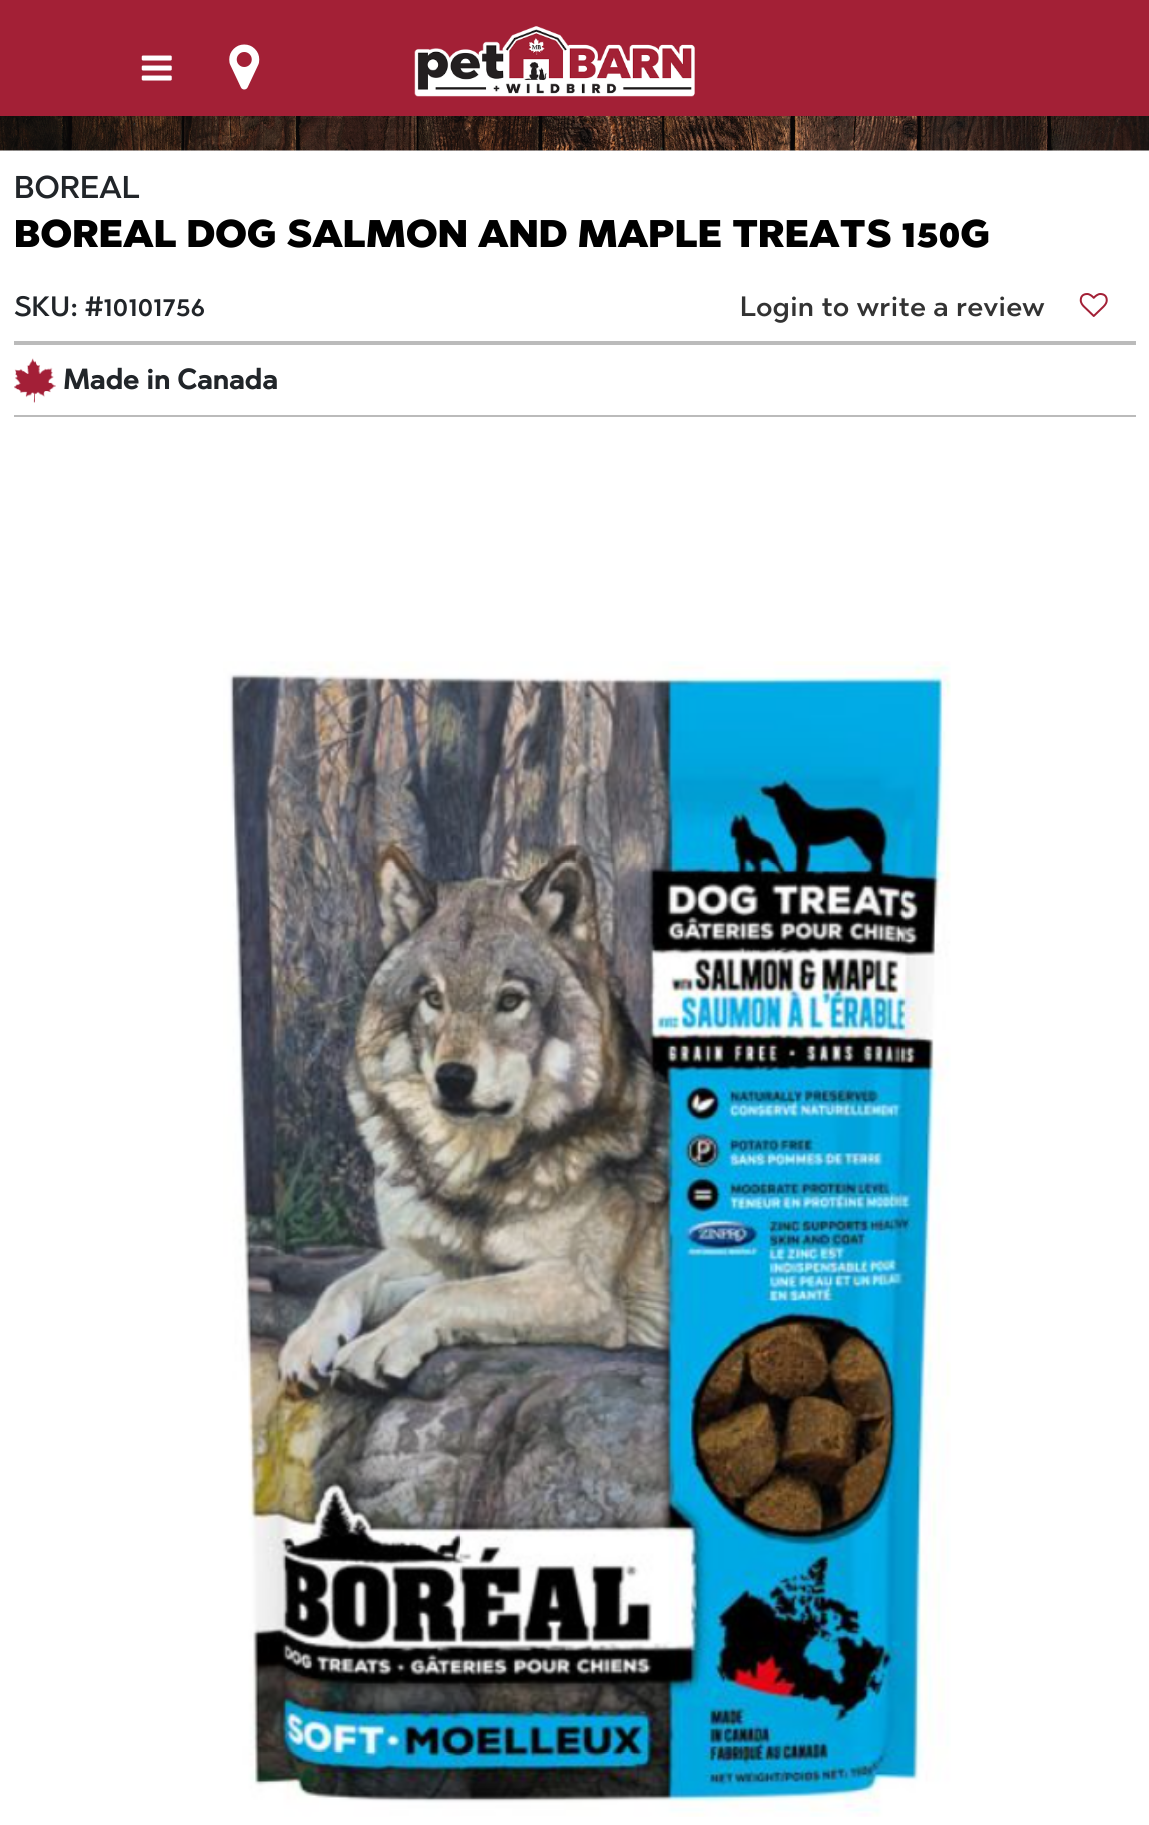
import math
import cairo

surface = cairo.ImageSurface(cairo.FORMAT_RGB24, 1149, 1825)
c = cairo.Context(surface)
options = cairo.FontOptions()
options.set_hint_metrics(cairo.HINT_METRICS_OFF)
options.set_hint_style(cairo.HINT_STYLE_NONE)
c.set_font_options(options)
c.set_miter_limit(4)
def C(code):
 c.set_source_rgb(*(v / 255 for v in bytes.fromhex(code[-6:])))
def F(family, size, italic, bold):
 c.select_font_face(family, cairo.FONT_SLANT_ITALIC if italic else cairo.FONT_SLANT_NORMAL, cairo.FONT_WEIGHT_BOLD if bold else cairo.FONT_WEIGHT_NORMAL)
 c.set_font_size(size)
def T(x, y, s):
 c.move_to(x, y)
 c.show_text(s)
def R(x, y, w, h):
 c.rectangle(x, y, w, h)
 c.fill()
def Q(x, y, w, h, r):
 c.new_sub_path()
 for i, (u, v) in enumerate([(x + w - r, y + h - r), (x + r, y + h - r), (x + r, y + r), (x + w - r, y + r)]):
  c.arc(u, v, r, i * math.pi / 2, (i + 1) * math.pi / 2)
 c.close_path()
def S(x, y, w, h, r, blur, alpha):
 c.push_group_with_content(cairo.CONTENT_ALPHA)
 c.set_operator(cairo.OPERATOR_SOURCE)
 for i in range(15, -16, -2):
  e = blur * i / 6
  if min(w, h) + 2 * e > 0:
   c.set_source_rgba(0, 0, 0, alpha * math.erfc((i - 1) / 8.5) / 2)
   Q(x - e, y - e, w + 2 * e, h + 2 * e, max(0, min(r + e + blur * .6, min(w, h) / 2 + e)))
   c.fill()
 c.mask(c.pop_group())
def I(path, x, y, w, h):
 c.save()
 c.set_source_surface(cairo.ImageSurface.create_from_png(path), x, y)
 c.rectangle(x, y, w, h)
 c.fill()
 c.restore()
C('ffffff')
c.paint()
I('4.png',0,116,1149,35)
C('000000')
S(0,4,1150,115,0,3.5,.07)
C('a32036')
R(0,0,1149,116)
I('1.png',141,55,31,26)
I('2.png',229,44,31,46)
I('3.png',414,26,281,71)
F('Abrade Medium',31.5,0,0)
C('212529')
T(14,198,'BOREAL')
F('Abrade Black',38.5,0,0)
C('000000')
T(14,247,'BOREAL DOG SALMON AND MAPLE TREATS 150G')
C('bbbbbb')
R(14,341,1122,4)
F('Abrade Medium',28,0,0)
C('212529')
T(14,316,'SKU: #10101756')
C('333333')
T(740,316,'Login to write a review')
I('5.png',1079,293,29,24)
C('bbbbbb')
R(14,415,1122,2)
I('6.png',14,358,42,45)
F('Abrade',28,0,1)
C('212529')
T(63,389,'Made in Canada')
I('7.png',223,661,728,1156)
surface.write_to_png('o.png')
